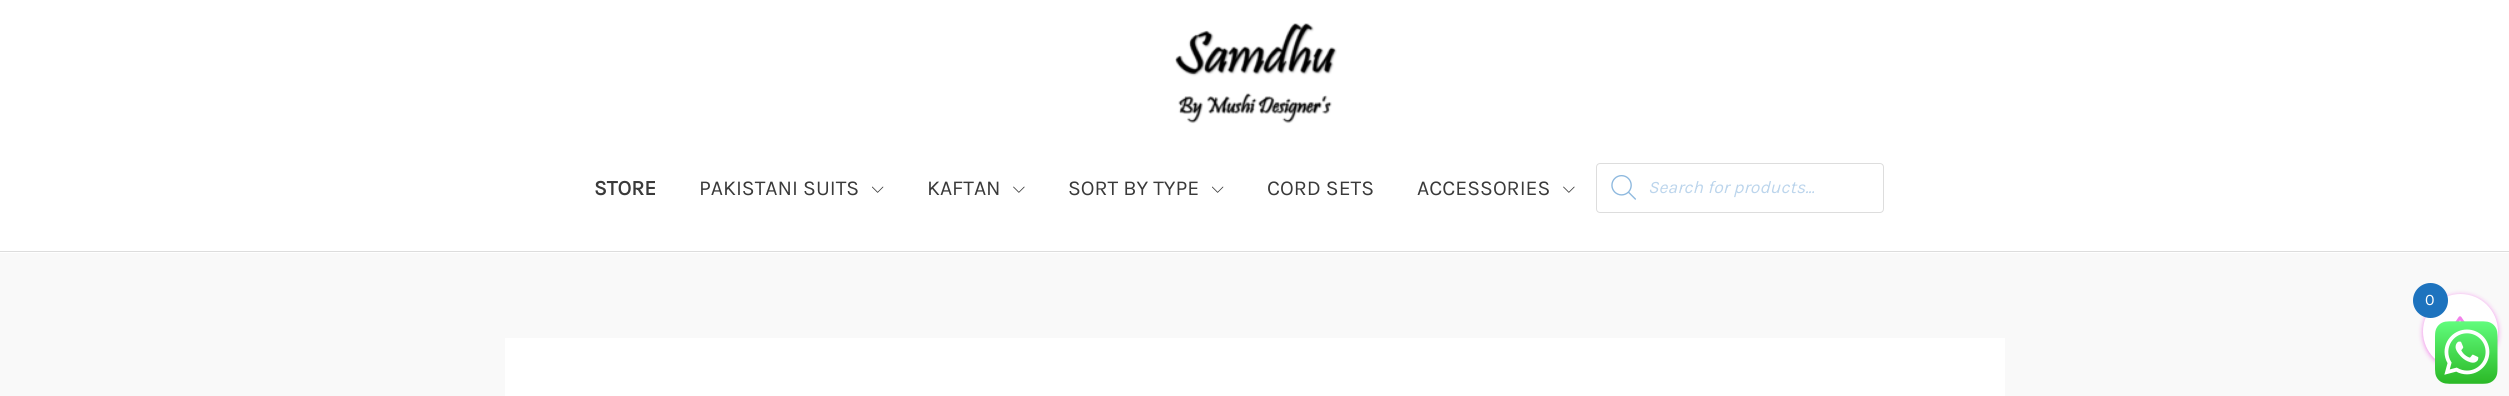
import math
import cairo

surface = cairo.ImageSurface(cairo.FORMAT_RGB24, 2509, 396)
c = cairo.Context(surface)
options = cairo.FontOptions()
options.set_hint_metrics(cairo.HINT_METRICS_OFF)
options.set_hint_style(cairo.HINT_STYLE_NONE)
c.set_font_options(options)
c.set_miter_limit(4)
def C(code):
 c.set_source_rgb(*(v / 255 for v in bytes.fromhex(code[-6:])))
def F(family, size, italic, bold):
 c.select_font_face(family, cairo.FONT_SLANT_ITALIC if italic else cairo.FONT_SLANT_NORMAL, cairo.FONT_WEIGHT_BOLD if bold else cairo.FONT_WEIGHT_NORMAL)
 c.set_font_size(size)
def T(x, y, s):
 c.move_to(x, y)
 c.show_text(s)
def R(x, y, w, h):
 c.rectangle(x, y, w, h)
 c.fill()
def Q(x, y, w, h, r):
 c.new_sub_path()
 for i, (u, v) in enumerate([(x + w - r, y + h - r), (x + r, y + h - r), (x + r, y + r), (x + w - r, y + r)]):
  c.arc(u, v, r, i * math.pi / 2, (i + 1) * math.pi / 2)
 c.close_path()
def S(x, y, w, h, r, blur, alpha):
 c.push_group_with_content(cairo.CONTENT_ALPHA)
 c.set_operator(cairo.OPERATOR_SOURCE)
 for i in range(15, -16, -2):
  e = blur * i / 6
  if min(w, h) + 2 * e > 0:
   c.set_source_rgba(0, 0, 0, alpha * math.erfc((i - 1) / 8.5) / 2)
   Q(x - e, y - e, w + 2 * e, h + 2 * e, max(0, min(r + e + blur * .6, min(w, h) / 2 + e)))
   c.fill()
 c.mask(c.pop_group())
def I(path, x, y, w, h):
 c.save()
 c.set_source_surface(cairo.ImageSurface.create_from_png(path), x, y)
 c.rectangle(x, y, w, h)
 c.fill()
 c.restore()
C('f9f9f9')
c.paint()
C('ffffff')
R(0,0,2509,253)
C('dddddd')
R(0,251,2509,1)
I('1.png',1175,23,162,101)
F('Karla',21.25,0,1)
C('3a3a3a')
T(594,195,'STORE')
F('Karla',21.25,0,0)
T(699,195,'PAKISTANI SUITS')
I('2.png',872,186,12,7)
T(927,195,'KAFTAN')
I('3.png',1013,186,12,7)
T(1068,195,'SORT BY TYPE')
I('2.png',1212,186,12,7)
T(1267,195,'CORD SETS')
T(1417,195,'ACCESSORIES')
I('3.png',1563,186,12,7)
Q(1596.5,163.5,287,49,3.5)
C('dddddd')
c.set_line_width(1)
c.stroke()
I('4.png',1611,175,25,25)
F('Karla',17.5,1,0)
C('bcd5ec')
T(1648,193,'Search for products...')
C('ffffff')
R(505,338,1500,58)
C('f282ea')
S(2423,295,75,75,37.5,2.5,1)
C('ffffff')
c.arc(2460.5,331.5,37.5,0,2 * math.pi)
c.fill()
C('1e73be')
c.arc(2430.5,300.5,17.5,0,2 * math.pi)
c.fill()
F('Karla',16,0,0)
C('ffffff')
T(2425,305,'0')
I('5.png',2455,316,10,6)
I('6.png',2435,321,63,63)
surface.write_to_png('o.png')
